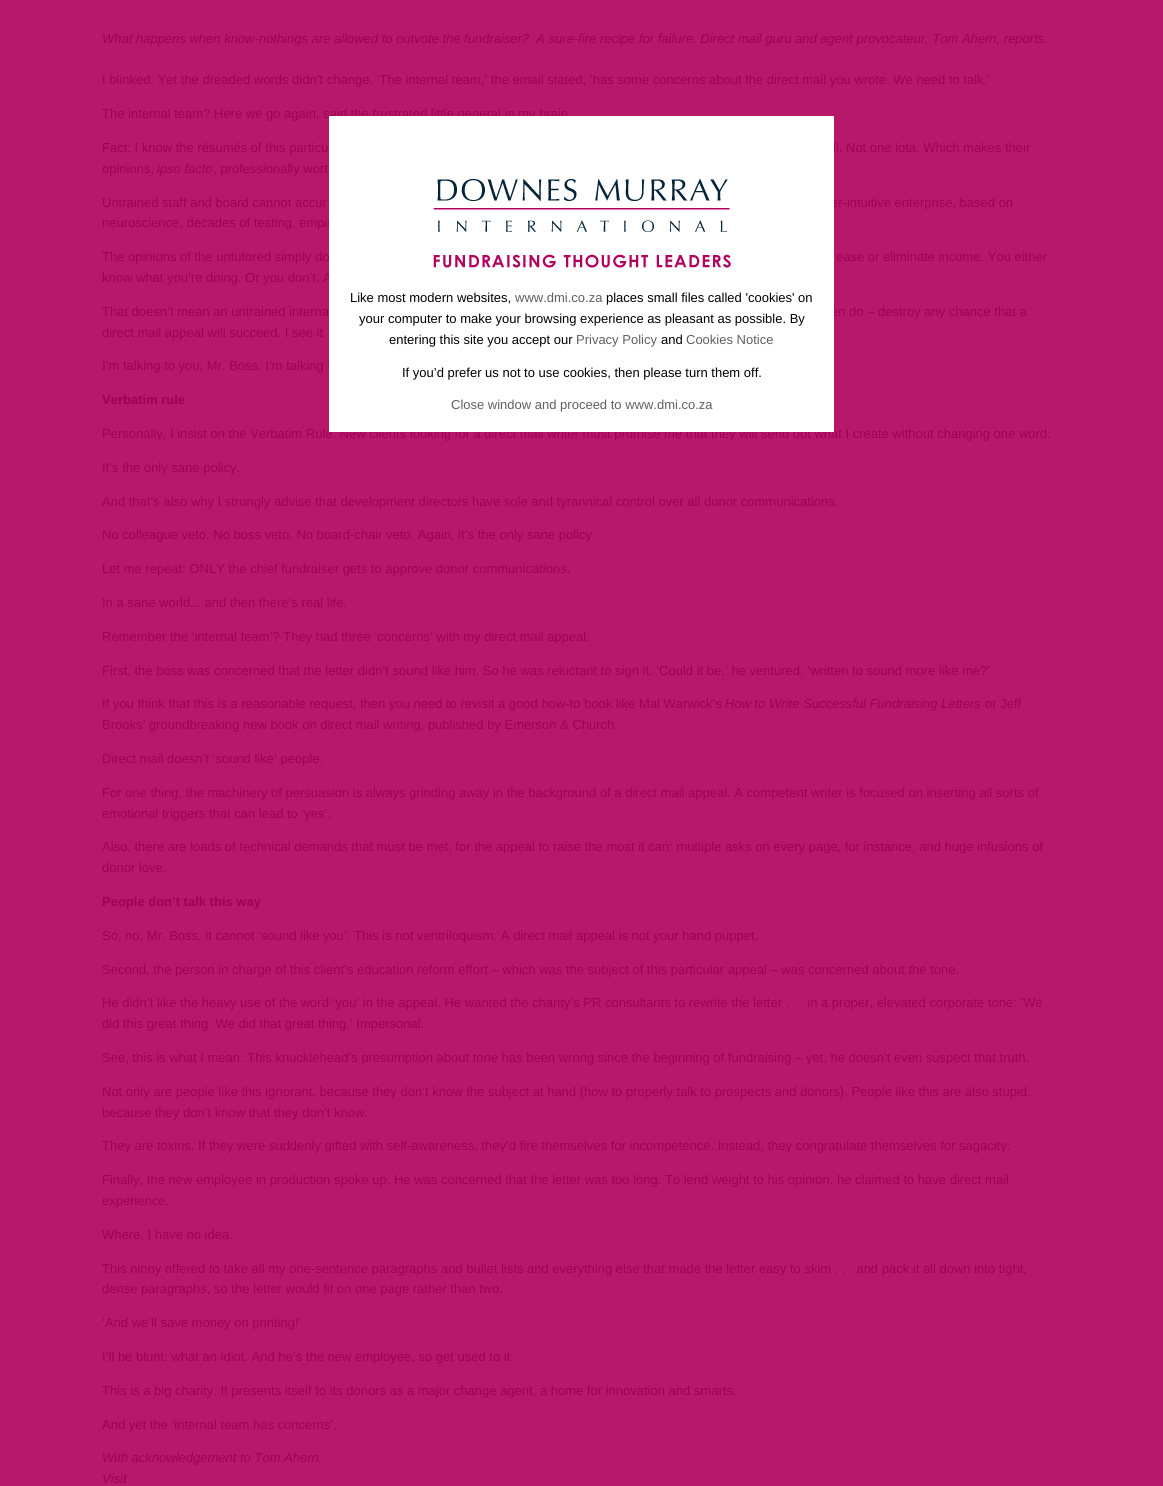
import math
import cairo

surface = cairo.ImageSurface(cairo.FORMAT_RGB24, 1163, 1486)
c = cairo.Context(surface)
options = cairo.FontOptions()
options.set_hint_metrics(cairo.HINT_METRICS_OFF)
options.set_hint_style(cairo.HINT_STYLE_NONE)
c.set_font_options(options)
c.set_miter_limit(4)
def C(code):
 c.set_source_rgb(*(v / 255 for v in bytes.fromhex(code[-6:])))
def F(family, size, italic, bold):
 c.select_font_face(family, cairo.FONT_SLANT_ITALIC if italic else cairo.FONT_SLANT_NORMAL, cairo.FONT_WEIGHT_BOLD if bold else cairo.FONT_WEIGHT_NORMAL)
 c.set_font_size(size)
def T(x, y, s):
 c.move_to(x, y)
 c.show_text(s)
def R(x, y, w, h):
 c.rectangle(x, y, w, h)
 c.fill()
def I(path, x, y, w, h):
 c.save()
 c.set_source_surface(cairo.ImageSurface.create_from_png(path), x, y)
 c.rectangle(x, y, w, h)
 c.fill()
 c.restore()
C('b8186c')
c.paint()
F('Liberation Sans',13,1,0)
C('9f0054')
T(102,43,'What happens when know-nothings are allowed to outvote the fundraiser?  A sure-fire recipe for failure. Direct mail guru and agent provocateur, Tom Ahern, reports.')
F('Liberation Sans',13,0,0)
T(102,84,'I blinked. Yet the dreaded words didn’t change. ‘The internal team,’ the email stated, ‘has some concerns about the direct mail you wrote. We need to talk.’')
T(102,118,'The internal team? Here we go again, said the frustrated little general in my brain')
T(102,152,'Fact: I know the résumés of this particu')
T(833,152,'il. Not one iota. Which makes their')
T(102,173,'opinions,')
F('Liberation Sans',13,1,0)
T(157,173,'ipso facto')
F('Liberation Sans',13,0,0)
T(213,173,', professionally wort')
T(102,207,'Untrained staff and board cannot accur')
T(831,207,'er-intuitive enterprise, based on')
T(102,227,'neuroscience, decades of testing, empir')
T(102,261,'The opinions of the untutored simply do')
T(836,261,'ease or eliminate income. You either')
T(102,282,'know what you’re doing. Or you don’t. A')
T(102,316,'That doesn’t mean an untrained interna')
T(831,316,'en do – destroy any chance that a')
T(102,337,'direct mail appeal will succeed. I see it')
T(102,370,'I’m talking to you, Mr. Boss. I’m talking t')
F('Liberation Sans',13,0,1)
T(102,404,'Verbatim rule')
F('Liberation Sans',13,0,0)
T(102,438,'Personally, I insist on the Verbatim Rule. New clients looking for a direct mail writer must promise me that they will send out what I create without changing one word.')
T(102,472,'It’s the only sane policy.')
T(102,506,'And that’s also why I strongly advise that development directors have sole and tyrannical control over all donor communications.')
T(102,539,'No colleague veto. No boss veto. No board-chair veto. Again, it’s the only sane policy.')
T(102,573,'Let me repeat: ONLY the chief fundraiser gets to approve donor communications.')
T(102,607,'In a sane world... and then there’s real life.')
T(102,641,'Remember the ‘internal team’? They had three ‘concerns’ with my direct mail appeal.')
T(102,675,'First, the boss was concerned that the letter didn’t sound like him. So he was reluctant to sign it. ‘Could it be,’ he ventured, ‘written to sound more like me?’')
T(102,708,'If you think that this is a reasonable request, then you need to revisit a good how-to book like Mal Warwick’s')
F('Liberation Sans',13,1,0)
T(725,708,'How to Write Successful Fundraising Letters')
F('Liberation Sans',13,0,0)
T(985,708,'or Jeff')
T(102,729,'Brooks’ groundbreaking new book on direct mail writing, published by Emerson & Church.')
T(102,763,'Direct mail doesn’t ‘sound like’ people.')
T(102,797,'For one thing, the machinery of persuasion is always grinding away in the background of a direct mail appeal. A competent writer is focused on inserting all sorts of')
T(102,818,'emotional triggers that can lead to ‘yes’.')
T(102,851,'Also, there are loads of technical demands that must be met, for the appeal to raise the most it can: multiple asks on every page, for instance; and huge infusions of')
T(102,872,'donor love.')
F('Liberation Sans',13,0,1)
T(102,906,'People don’t talk this way')
F('Liberation Sans',13,0,0)
T(102,940,'So, no, Mr. Boss, it cannot ‘sound like you’. This is not ventriloquism. A direct mail appeal is not your hand puppet.')
T(102,974,'Second, the person in charge of this client’s education reform effort – which was the subject of this particular appeal – was concerned about the tone.')
T(102,1007,'He didn’t like the heavy use of the word ‘you’ in the appeal. He wanted the charity’s PR consultants to rewrite the letter . . . in a proper, elevated corporate tone: ‘We')
T(102,1028,'did this great thing. We did that great thing.’ Impersonal.')
T(102,1062,'See, this is what I mean. This knucklehead’s presumption about tone has been wrong since the beginning of fundraising – yet, he doesn’t even suspect that truth.')
T(102,1096,'Not only are people like this ignorant, because they don’t know the subject at hand (how to properly talk to prospects and donors). People like this are also stupid,')
T(102,1117,'because they don’t know that they don’t know.')
T(102,1150,'They are toxins. If they were suddenly gifted with self-awareness, they’d fire themselves for incompetence. Instead, they congratulate themselves for sagacity.')
T(102,1184,'Finally, the new employee in production spoke up. He was concerned that the letter was too long. To lend weight to his opinion, he claimed to have direct mail')
T(102,1205,'experience.')
T(102,1239,'Where, I have no idea.')
T(102,1273,'This ninny offered to take all my one-sentence paragraphs and bullet lists and everything else that made the letter easy to skim . . . and pack it all down into tight,')
T(102,1293,'dense paragraphs, so the letter would fit on one page rather than two.')
T(102,1327,'‘And we’ll save money on printing!’')
T(102,1361,'I’ll be blunt: what an idiot. And he’s the new employee, so get used to it.')
T(102,1395,'This is a big charity. It presents itself to its donors as a major change agent, a home for innovation and smarts.')
T(102,1429,'And yet the ‘internal team has concerns’.')
F('Liberation Sans',13,1,0)
T(102,1462,'With acknowledgement to Tom Ahern.')
T(102,1483,'Visit')
C('ffffff')
R(329,116,505,316)
I('1.png',433,179,298,89)
F('Liberation Sans',13,0,0)
C('000000')
T(350,302,'Like most modern websites,')
C('5f5f60')
T(515,302,'www.dmi.co.za')
C('000000')
T(606,302,'places small files called \'cookies\' on')
T(359,323,'your computer to make your browsing experience as pleasant as possible. By')
T(389,344,'entering this site you accept our')
C('5f5f60')
T(576,344,'Privacy Policy')
C('000000')
T(661,344,'and')
C('5f5f60')
T(686,344,'Cookies Notice')
C('000000')
T(402,377,'If you’d prefer us not to use cookies, then please turn them off.')
C('5f5f60')
T(451,409,'Close window and proceed to www.dmi.co.za')
surface.write_to_png('o.png')
